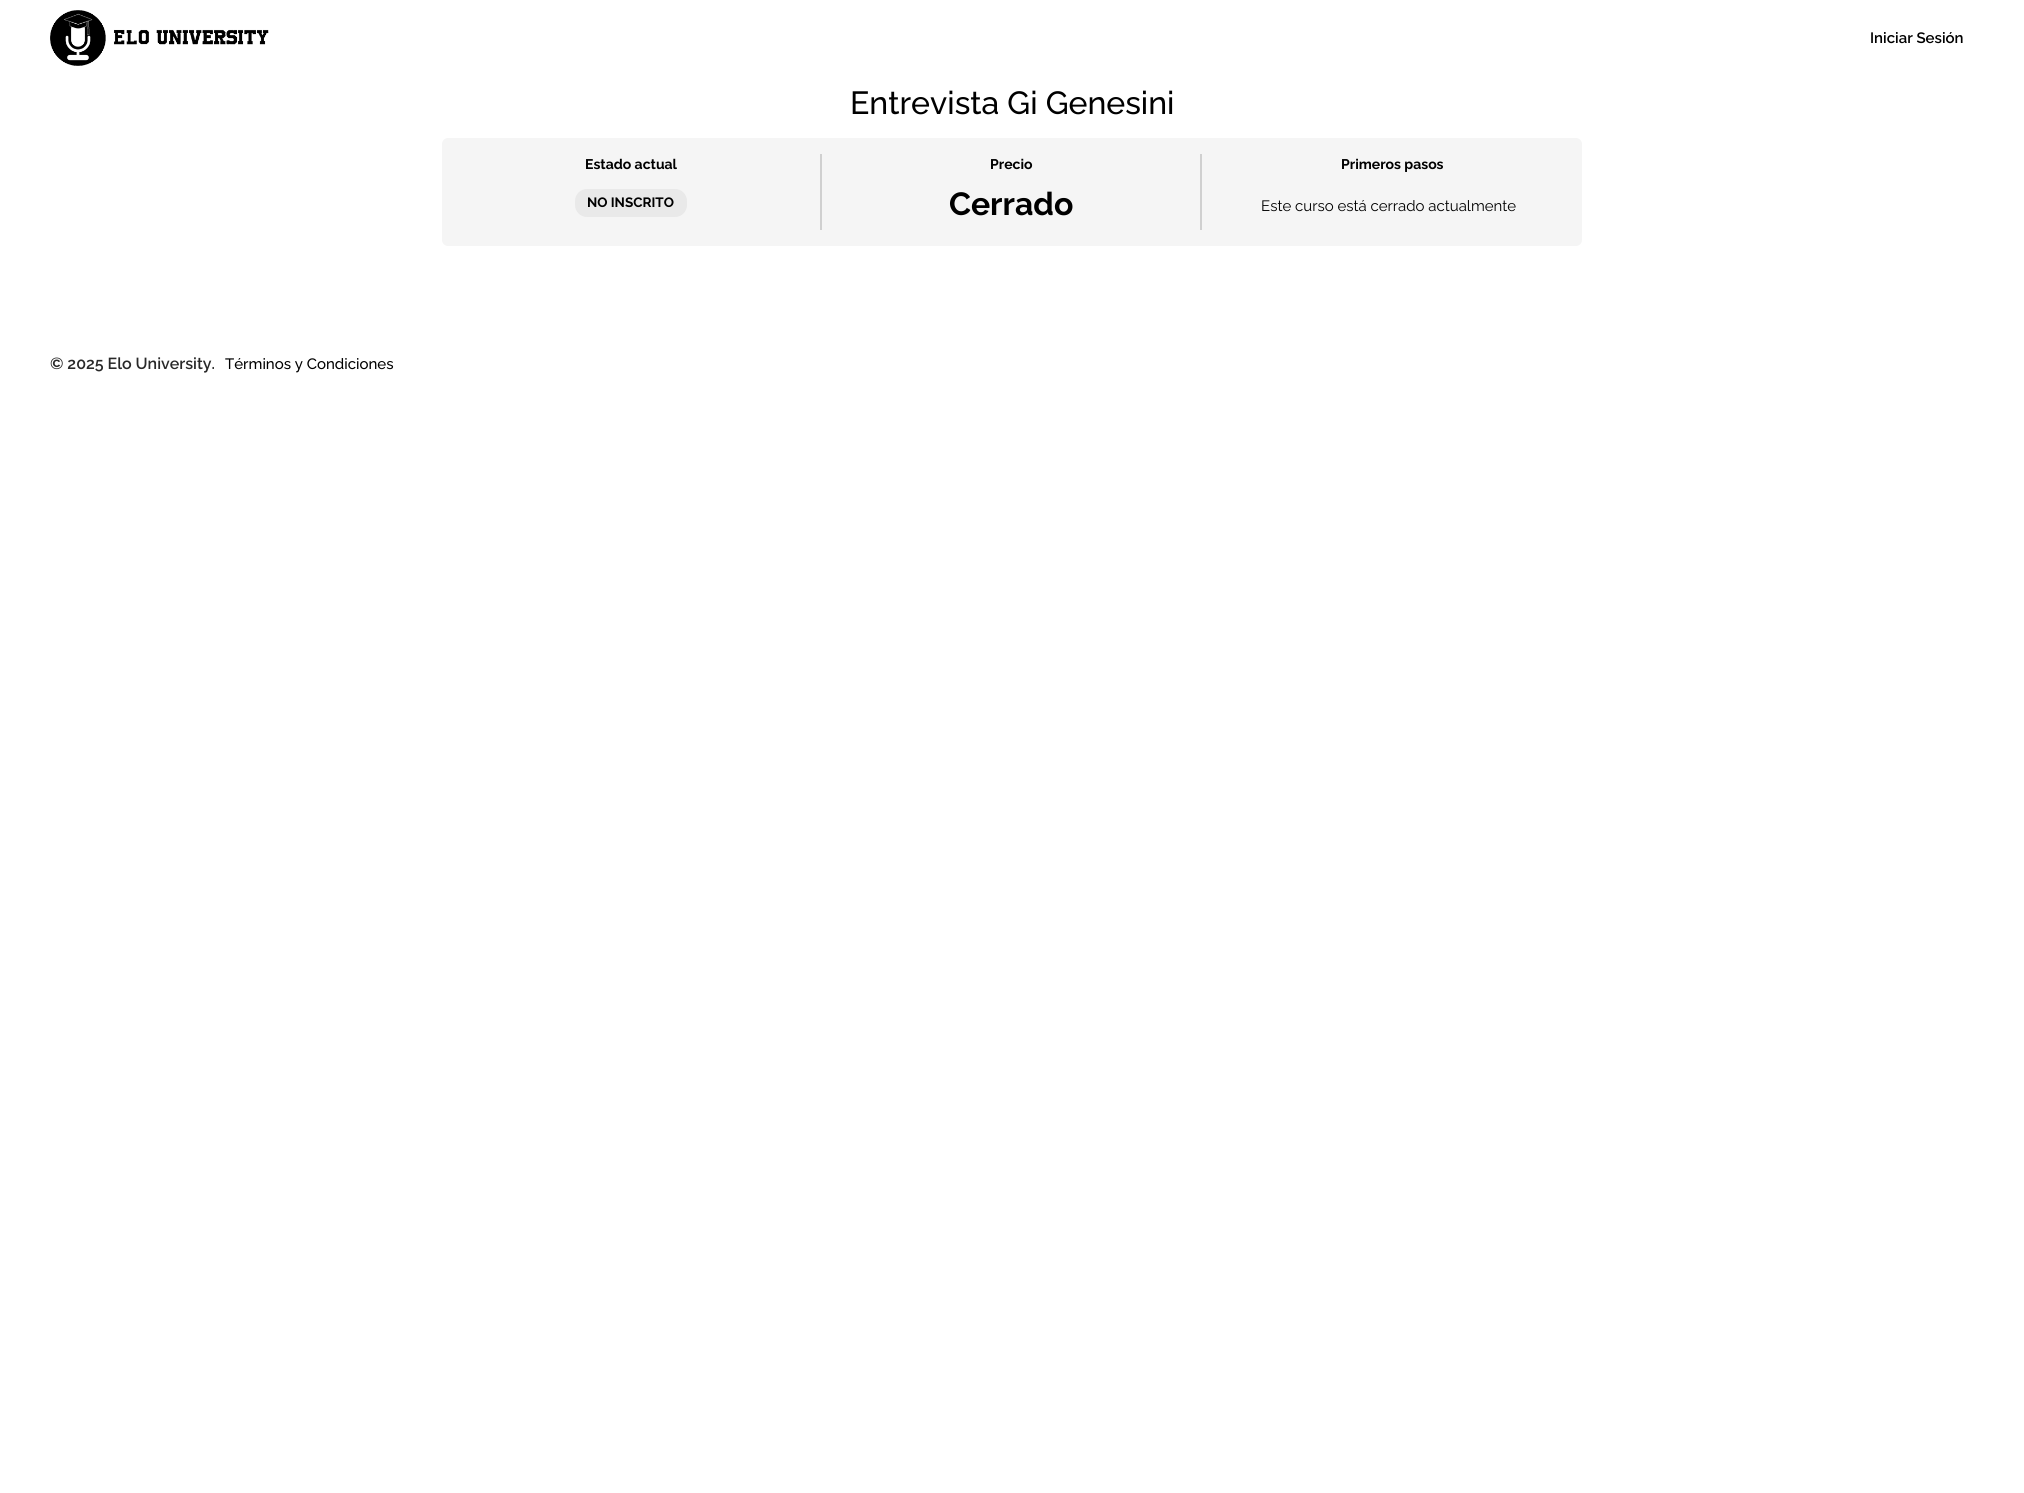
import math
import cairo

surface = cairo.ImageSurface(cairo.FORMAT_RGB24, 2024, 1493)
c = cairo.Context(surface)
options = cairo.FontOptions()
options.set_hint_metrics(cairo.HINT_METRICS_OFF)
options.set_hint_style(cairo.HINT_STYLE_NONE)
c.set_font_options(options)
c.set_miter_limit(4)
def C(code):
 c.set_source_rgb(*(v / 255 for v in bytes.fromhex(code[-6:])))
def F(family, size, italic, bold):
 c.select_font_face(family, cairo.FONT_SLANT_ITALIC if italic else cairo.FONT_SLANT_NORMAL, cairo.FONT_WEIGHT_BOLD if bold else cairo.FONT_WEIGHT_NORMAL)
 c.set_font_size(size)
def T(x, y, s):
 c.move_to(x, y)
 c.show_text(s)
def R(x, y, w, h):
 c.rectangle(x, y, w, h)
 c.fill()
def Q(x, y, w, h, r):
 c.new_sub_path()
 for i, (u, v) in enumerate([(x + w - r, y + h - r), (x + r, y + h - r), (x + r, y + r), (x + w - r, y + r)]):
  c.arc(u, v, r, i * math.pi / 2, (i + 1) * math.pi / 2)
 c.close_path()
def I(path, x, y, w, h):
 c.save()
 c.set_source_surface(cairo.ImageSurface.create_from_png(path), x, y)
 c.rectangle(x, y, w, h)
 c.fill()
 c.restore()
C('ffffff')
c.paint()
I('1.png',50,10,219,56)
F('Raleway SemiBold',15,0,0)
C('000000')
T(1870,43,'Iniciar Sesión')
F('Raleway Medium',32,0,0)
T(850,114,'Entrevista Gi Genesini')
C('f5f5f5')
Q(442,138,1140,108,6)
c.fill()
C('d0d0d0')
R(820,154,2,76)
F('Raleway',14,0,1)
C('000000')
T(585,169,'Estado actual')
C('e9e9e9')
Q(575,189,112,28,12)
c.fill()
F('Raleway',13.5,0,1)
C('000000')
T(587,207,'NO INSCRITO')
C('d0d0d0')
R(1200,154,2,76)
F('Raleway',14,0,1)
C('000000')
T(990,169,'Precio')
F('Raleway',32,0,1)
T(949,215,'Cerrado')
F('Raleway',14,0,1)
T(1341,169,'Primeros pasos')
F('Raleway',15,0,0)
T(1261,211,'Este curso está cerrado actualmente')
F('Raleway SemiBold',16,0,0)
C('292929')
T(50,369,'© 2025 Elo University.')
F('Raleway Medium',15,0,0)
C('000000')
T(225,369,'Términos y Condiciones')
surface.write_to_png('o.png')
